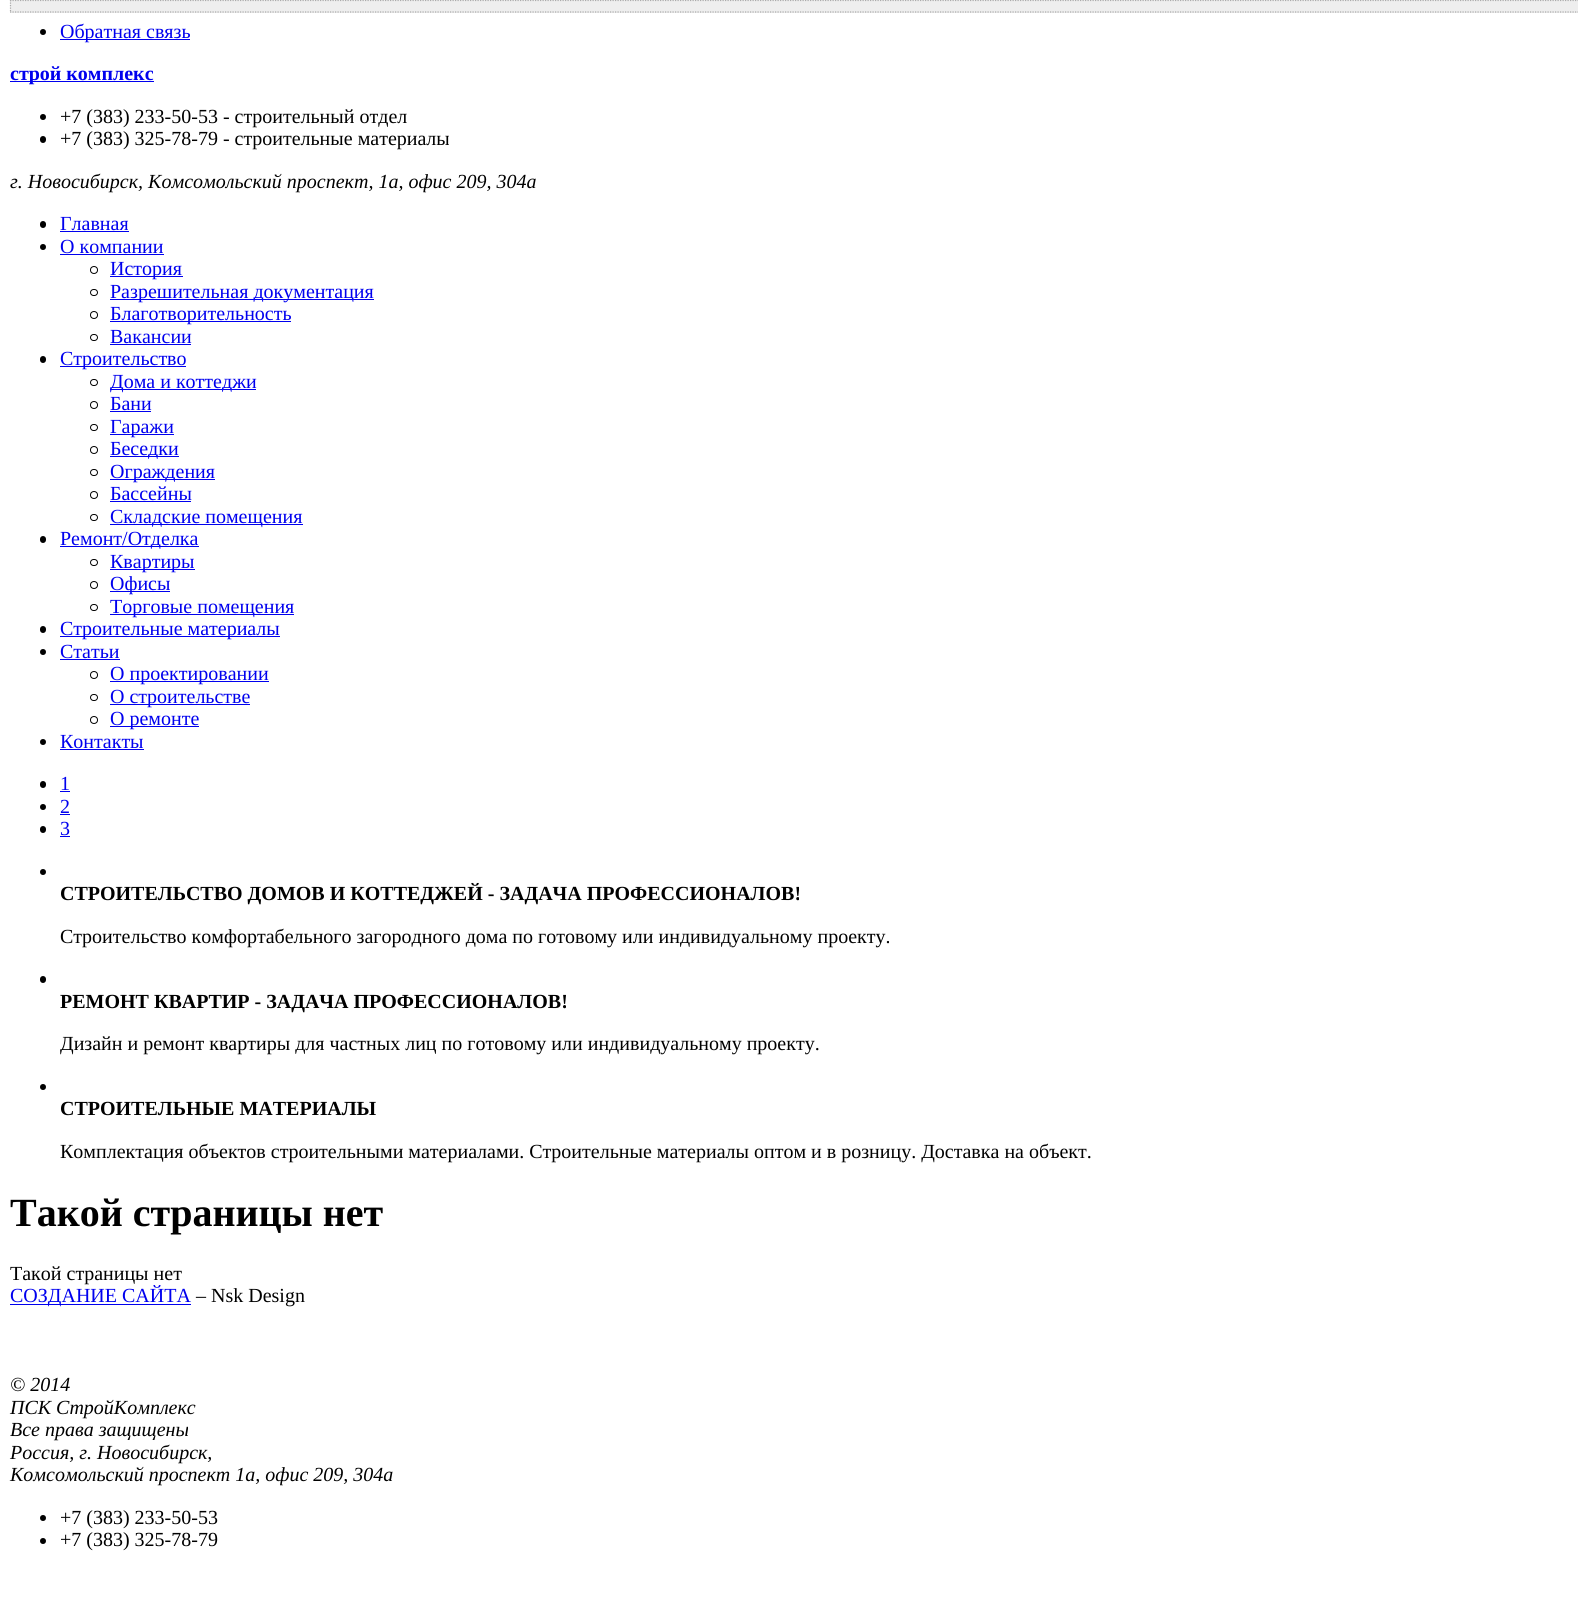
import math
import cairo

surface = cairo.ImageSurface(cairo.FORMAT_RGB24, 1578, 1614)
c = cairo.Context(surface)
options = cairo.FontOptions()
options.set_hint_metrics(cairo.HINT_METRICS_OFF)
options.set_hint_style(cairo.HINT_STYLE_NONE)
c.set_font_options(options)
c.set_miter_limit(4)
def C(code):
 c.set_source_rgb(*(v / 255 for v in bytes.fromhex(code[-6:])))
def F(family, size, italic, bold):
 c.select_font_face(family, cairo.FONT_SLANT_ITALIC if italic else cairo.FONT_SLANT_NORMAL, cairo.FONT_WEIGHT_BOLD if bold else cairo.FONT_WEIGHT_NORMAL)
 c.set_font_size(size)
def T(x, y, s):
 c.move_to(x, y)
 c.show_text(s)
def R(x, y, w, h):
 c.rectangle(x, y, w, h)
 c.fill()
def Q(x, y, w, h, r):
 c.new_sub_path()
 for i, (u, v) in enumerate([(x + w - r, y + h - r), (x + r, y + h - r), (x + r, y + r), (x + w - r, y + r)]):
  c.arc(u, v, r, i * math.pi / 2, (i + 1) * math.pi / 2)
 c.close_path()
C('ffffff')
c.paint()
C('eeeeee')
R(10,0,1568,13)
c.new_path()
c.move_to(10,.5)
c.line_to(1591,.5)
C('aaaaaa')
c.set_line_width(1.2)
c.set_dash([1.25,1.25])
c.stroke()
c.new_path()
c.move_to(10,12)
c.line_to(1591,12)
c.stroke()
c.new_path()
c.move_to(10.5,0)
c.line_to(10.5,12.5)
c.stroke()
C('000000')
c.arc(43,32,3,0,2 * math.pi)
c.fill()
C('0000ee')
R(60,39,130,1)
F('Liberation Serif',20,0,0)
T(60,38,'Обратная связь')
R(10,81,144,1)
F('Liberation Serif',20,0,1)
T(10,80,'строй комплекс')
C('000000')
c.new_path()
c.arc(43,117,3,0,2 * math.pi)
c.fill()
F('Liberation Serif',20,0,0)
T(60,123,'+7 (383) 233-50-53 - строительный отдел')
Q(40,136,6,7,3)
c.fill()
T(60,145,'+7 (383) 325-78-79 - строительные материалы')
F('Liberation Serif',20,1,0)
T(10,188,'г. Новосибирск, Комсомольский проспект, 1а, офис 209, 304а')
Q(40,221,6,7,3)
c.fill()
F('Liberation Serif',20,0,0)
C('0000ee')
T(60,230,'Главная')
R(60,231,69,1)
C('000000')
c.new_path()
c.arc(43,247,3,0,2 * math.pi)
c.fill()
C('0000ee')
T(60,253,'О компании')
R(60,254,104,1)
c.new_path()
c.arc(94,270,3.5,0,2 * math.pi)
C('000000')
c.set_line_width(1)
c.set_dash([])
c.stroke()
C('0000ee')
R(110,276,73,1)
T(110,275,'История')
Q(90.5,289.5,7,6,3)
C('000000')
c.stroke()
C('0000ee')
R(110,299,264,1)
T(110,298,'Разрешительная документация')
c.new_path()
c.arc(94,315,3.5,0,2 * math.pi)
C('000000')
c.stroke()
C('0000ee')
R(110,321,181,1)
T(110,320,'Благотворительность')
Q(90.5,334.5,7,6,3)
C('000000')
c.stroke()
C('0000ee')
T(110,343,'Вакансии')
R(110,344,81,1)
C('000000')
Q(40,356,6,7,3)
c.fill()
C('0000ee')
R(60,366,126,1)
T(60,365,'Строительство')
Q(90.5,379.5,7,6,3)
C('000000')
c.stroke()
C('0000ee')
R(110,389,146,1)
T(110,388,'Дома и коттеджи')
c.new_path()
c.arc(94,405,3.5,0,2 * math.pi)
C('000000')
c.stroke()
C('0000ee')
T(110,410,'Бани')
R(110,411,41,1)
Q(90.5,424.5,7,6,3)
C('000000')
c.stroke()
C('0000ee')
R(110,434,64,1)
T(110,433,'Гаражи')
c.new_path()
c.arc(94,450,3.5,0,2 * math.pi)
C('000000')
c.stroke()
C('0000ee')
R(110,456,69,1)
T(110,455,'Беседки')
Q(90.5,469.5,7,6,3)
C('000000')
c.stroke()
C('0000ee')
R(110,479,105,1)
T(110,478,'Ограждения')
c.new_path()
c.arc(94,495,3.5,0,2 * math.pi)
C('000000')
c.stroke()
C('0000ee')
T(110,500,'Бассейны')
R(110,501,81,1)
Q(90.5,514.5,7,6,3)
C('000000')
c.stroke()
C('0000ee')
R(110,524,193,1)
T(110,523,'Складские помещения')
C('000000')
Q(40,536,6,7,3)
c.fill()
C('0000ee')
R(60,546,139,1)
T(60,545,'Ремонт/Отделка')
Q(90.5,559.5,7,6,3)
C('000000')
c.stroke()
C('0000ee')
R(110,569,85,1)
T(110,568,'Квартиры')
c.new_path()
c.arc(94,585,3.5,0,2 * math.pi)
C('000000')
c.stroke()
C('0000ee')
R(110,591,60,1)
T(110,590,'Офисы')
Q(90.5,604.5,7,6,3)
C('000000')
c.stroke()
C('0000ee')
R(110,614,184,1)
T(110,613,'Торговые помещения')
C('000000')
Q(40,626,6,7,3)
c.fill()
C('0000ee')
R(60,636,220,1)
T(60,635,'Строительные материалы')
C('000000')
c.new_path()
c.arc(43,652,3,0,2 * math.pi)
c.fill()
C('0000ee')
T(60,658,'Статьи')
R(60,659,60,1)
c.new_path()
c.arc(94,675,3.5,0,2 * math.pi)
C('000000')
c.stroke()
C('0000ee')
R(110,681,159,1)
T(110,680,'О проектировании')
Q(90.5,694.5,7,6,3)
C('000000')
c.stroke()
C('0000ee')
R(110,704,140,1)
T(110,703,'О строительстве')
c.new_path()
c.arc(94,720,3.5,0,2 * math.pi)
C('000000')
c.stroke()
C('0000ee')
R(110,726,89,1)
T(110,725,'О ремонте')
C('000000')
c.new_path()
c.arc(43,742,3,0,2 * math.pi)
c.fill()
C('0000ee')
T(60,748,'Контакты')
R(60,749,84,1)
C('000000')
Q(40,781,6,7,3)
c.fill()
C('0000ee')
T(60,790,'1')
R(60,791,10,1)
C('000000')
c.new_path()
c.arc(43,807,3,0,2 * math.pi)
c.fill()
C('0000ee')
T(60,813,'2')
R(60,814,10,1)
C('000000')
Q(40,826,6,7,3)
c.fill()
C('0000ee')
T(60,835,'3')
R(60,836,10,1)
C('000000')
c.new_path()
c.arc(43,872,3,0,2 * math.pi)
c.fill()
F('Liberation Serif',20,0,1)
T(60,900,'СТРОИТЕЛЬСТВО ДОМОВ И КОТТЕДЖЕЙ - ЗАДАЧА ПРОФЕССИОНАЛОВ!')
F('Liberation Serif',20,0,0)
T(60,943,'Строительство комфортабельного загородного дома по готовому или индивидуальному проекту.')
Q(40,976,6,7,3)
c.fill()
F('Liberation Serif',20,0,1)
T(60,1008,'РЕМОНТ КВАРТИР - ЗАДАЧА ПРОФЕССИОНАЛОВ!')
F('Liberation Serif',20,0,0)
T(60,1050,'Дизайн и ремонт квартиры для частных лиц по готовому или индивидуальному проекту.')
c.new_path()
c.arc(43,1087,3,0,2 * math.pi)
c.fill()
F('Liberation Serif',20,0,1)
T(60,1115,'СТРОИТЕЛЬНЫЕ МАТЕРИАЛЫ')
F('Liberation Serif',20,0,0)
T(60,1158,'Комплектация объектов строительными материалами. Строительные материалы оптом и в розницу. Доставка на объект.')
F('Liberation Serif',40,0,1)
T(10,1226,'Такой страницы нет')
F('Liberation Serif',20,0,0)
T(10,1280,'Такой страницы нет')
C('0000ee')
R(10,1304,181,1)
T(10,1302,'СОЗДАНИЕ САЙТА')
C('000000')
T(196,1302,'– Nsk Design')
F('Liberation Serif',20,1,0)
T(10,1391,'© 2014')
T(10,1414,'ПСК СтройКомплекс')
T(10,1436,'Все права защищены')
T(10,1459,'Россия, г. Новосибирск,')
T(10,1481,'Комсомольский проспект 1а, офис 209, 304а')
c.new_path()
c.arc(43,1518,3,0,2 * math.pi)
c.fill()
F('Liberation Serif',20,0,0)
T(60,1524,'+7 (383) 233-50-53')
c.new_path()
c.arc(43,1541,3,0,2 * math.pi)
c.fill()
T(60,1546,'+7 (383) 325-78-79')
surface.write_to_png('o.png')
